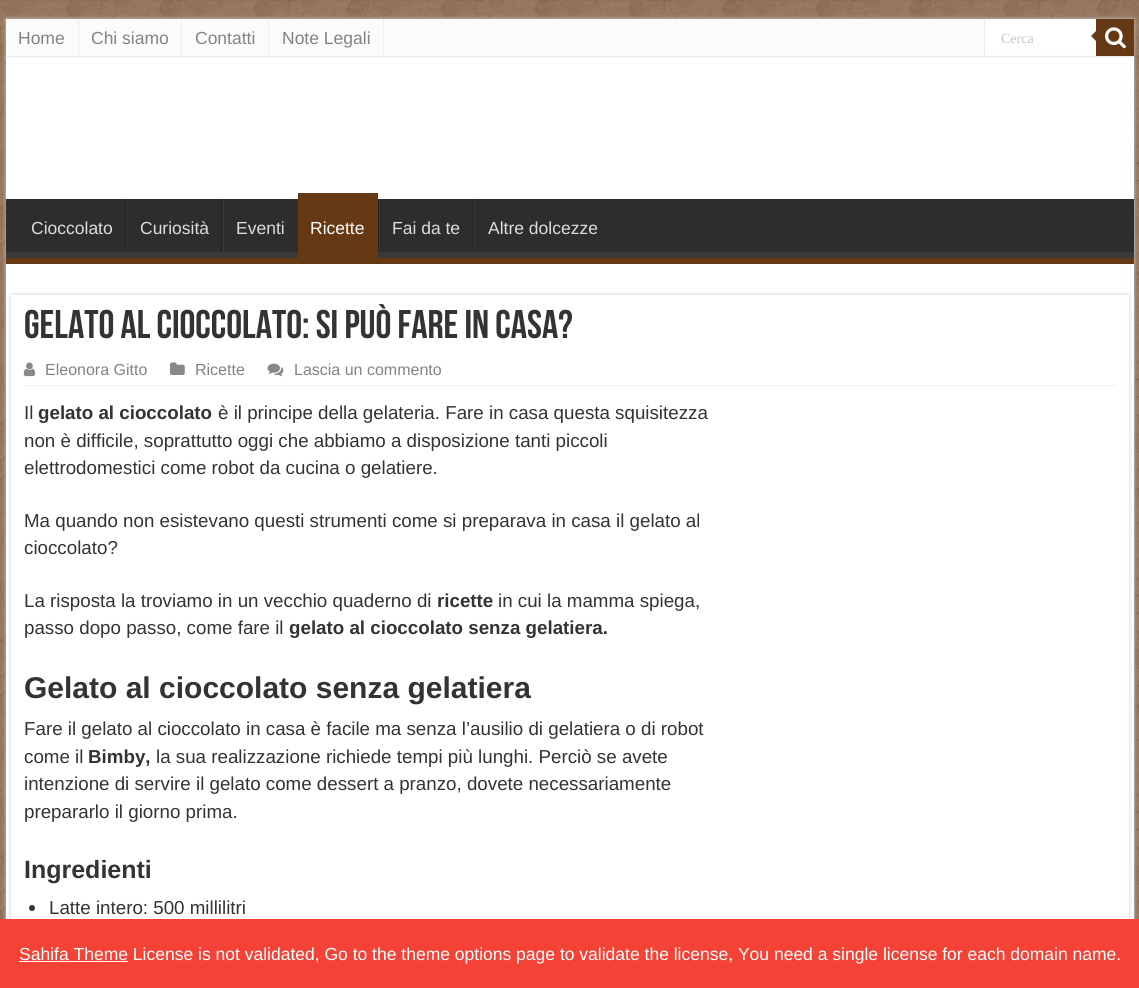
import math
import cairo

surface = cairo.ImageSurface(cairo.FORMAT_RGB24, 1139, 988)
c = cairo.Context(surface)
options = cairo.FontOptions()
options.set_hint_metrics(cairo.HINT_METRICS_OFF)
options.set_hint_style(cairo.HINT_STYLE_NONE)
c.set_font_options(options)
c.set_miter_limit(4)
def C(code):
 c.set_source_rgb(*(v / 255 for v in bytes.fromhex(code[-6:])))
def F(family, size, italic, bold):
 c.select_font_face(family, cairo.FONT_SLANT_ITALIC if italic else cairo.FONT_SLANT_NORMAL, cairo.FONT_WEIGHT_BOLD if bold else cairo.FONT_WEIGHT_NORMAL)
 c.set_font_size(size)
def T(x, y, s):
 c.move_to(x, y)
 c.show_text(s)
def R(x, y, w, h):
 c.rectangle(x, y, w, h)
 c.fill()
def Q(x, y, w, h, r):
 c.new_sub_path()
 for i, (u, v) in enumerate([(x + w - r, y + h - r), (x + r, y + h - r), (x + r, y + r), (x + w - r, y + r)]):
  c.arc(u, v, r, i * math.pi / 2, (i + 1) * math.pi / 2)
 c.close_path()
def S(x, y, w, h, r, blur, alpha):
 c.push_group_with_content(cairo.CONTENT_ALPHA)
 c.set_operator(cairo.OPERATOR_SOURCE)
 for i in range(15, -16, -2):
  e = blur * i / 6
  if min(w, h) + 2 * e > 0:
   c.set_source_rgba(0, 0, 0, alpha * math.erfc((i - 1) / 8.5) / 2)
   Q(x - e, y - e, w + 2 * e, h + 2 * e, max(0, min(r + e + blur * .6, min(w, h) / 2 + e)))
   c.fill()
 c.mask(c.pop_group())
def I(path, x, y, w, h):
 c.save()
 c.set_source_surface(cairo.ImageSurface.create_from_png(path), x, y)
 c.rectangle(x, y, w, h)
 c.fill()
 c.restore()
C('663915')
c.paint()
I('1.png',0,0,1139,919)
C('cacaca')
S(6,19,1128,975,0,2,1)
C('ffffff')
R(6,58,1128,861)
C('fbfbfb')
R(6,19,1128,39)
C('ececec')
R(6,56,1128,1)
C('eeeeee')
R(78,19,1,37)
F('Liberation Sans',17.5,0,0)
C('838383')
T(18,44,'Home')
C('eeeeee')
R(181,19,1,37)
C('838383')
T(91,44,'Chi siamo')
C('eeeeee')
R(268,19,1,37)
C('838383')
T(195,44,'Contatti')
C('eeeeee')
R(383,19,1,37)
C('838383')
T(282,44,'Note Legali')
C('ffffff')
R(985,19,111,36)
C('ececec')
R(984,19,1,36)
F('Liberation Serif',14,0,0)
C('c5c5c5')
T(1001,43,'Cerca')
C('663915')
R(1096,19,38,37)
I('2.png',1105,27,21,22)
c.new_path()
c.move_to(1096,31)
c.line_to(1096,41)
c.line_to(1091,36)
c.close_path()
c.fill()
C('2d2d2d')
R(6,199,1128,53)
c.save()
c.rectangle(6,199,1128,59)
c.clip()
C('393939')
c.set_fill_rule(cairo.FILL_RULE_EVEN_ODD)
c.new_path()
c.move_to(-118,75)
c.line_to(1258,75)
c.line_to(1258,381)
c.line_to(-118,381)
c.close_path()
c.move_to(5,191)
c.line_to(1132,191)
c.curve_to(1133,191,1134,192,1134,192)
c.line_to(1134,251)
c.curve_to(1134,252,1133,252,1132,252)
c.line_to(5,252)
c.curve_to(4,252,4,252,4,251)
c.line_to(4,192)
c.curve_to(4,192,4,191,5,191)
c.close_path()
c.fill()
c.restore()
C('663915')
R(6,258,1128,6)
F('Liberation Sans',17.5,0,0)
C('dddddd')
T(31,234,'Cioccolato')
C('222222')
R(125,199,1,52)
C('383838')
R(126,199,1,52)
C('dddddd')
T(140,234,'Curiosità')
C('222222')
R(221,199,1,52)
C('383838')
R(223,199,1,52)
C('dddddd')
T(236,234,'Eventi')
C('663915')
R(298,193,80,65)
C('ffffff')
T(310,234,'Ricette')
C('222222')
R(378,199,1,52)
C('383838')
R(379,199,1,52)
C('dddddd')
T(392,234,'Fai da te')
C('222222')
R(473,199,1,52)
C('383838')
R(474,199,1,52)
C('dddddd')
T(488,234,'Altre dolcezze')
C('cacaca')
S(11,295,1118,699,0,2,1)
C('ffffff')
R(11,295,1118,624)
F('Bebas Neue',40,0,1)
C('333333')
T(24,338,'Gelato al cioccolato: si può fare in casa?')
C('f2f2f2')
R(24,385,1092,1)
I('3.png',23,362,13,15)
F('Liberation Sans',16,0,0)
C('838383')
T(45,375,'Eleonora Gitto')
I('4.png',170,362,15,13)
T(195,375,'Ricette')
I('5.png',267,363,17,14)
T(294,375,'Lascia un commento')
F('Liberation Sans',18.75,0,0)
C('333333')
T(24,419,'Il')
F('Liberation Sans',18.75,0,1)
T(38,419,'gelato al cioccolato')
F('Liberation Sans',18.75,0,0)
T(218,419,'è il principe della gelateria. Fare in casa questa squisitezza')
T(24,447,'non è difficile, soprattutto oggi che abbiamo a disposizione tanti piccoli')
T(24,474,'elettrodomestici come robot da cucina o gelatiere.')
T(24,527,'Ma quando non esistevano questi strumenti come si preparava in casa il gelato al')
T(24,554,'cioccolato?')
T(24,607,'La risposta la troviamo in un vecchio quaderno di')
F('Liberation Sans',18.75,0,1)
T(437,607,'ricette')
F('Liberation Sans',18.75,0,0)
T(498,607,'in cui la mamma spiega,')
T(24,634,'passo dopo passo, come fare il')
F('Liberation Sans',18.75,0,1)
T(289,634,'gelato al cioccolato senza gelatiera.')
F('Liberation Sans',30,0,1)
T(24,698,'Gelato al cioccolato senza gelatiera')
F('Liberation Sans',18.75,0,0)
T(24,735,'Fare il gelato al cioccolato in casa è facile ma senza l’ausilio di gelatiera o di robot')
T(24,763,'come il')
F('Liberation Sans',18.75,0,1)
T(88,763,'Bimby,')
F('Liberation Sans',18.75,0,0)
T(156,763,'la sua realizzazione richiede tempi più lunghi. Perciò se avete')
T(24,790,'intenzione di servire il gelato come dessert a pranzo, dovete necessariamente')
T(24,818,'prepararlo il giorno prima.')
F('Liberation Sans',25,0,1)
T(24,878,'Ingredienti')
c.new_path()
c.arc(32,908,3,0,2 * math.pi)
c.fill()
F('Liberation Sans',18.75,0,0)
T(49,914,'Latte intero: 500 millilitri')
C('f44336')
R(0,919,1139,69)
C('ffffff')
R(19,961,109,1)
F('Liberation Sans',17.5,0,0)
T(19,960,'Sahifa Theme License is not validated, Go to the theme options page to validate the license, You need a single license for each domain name.')
surface.write_to_png('o.png')
